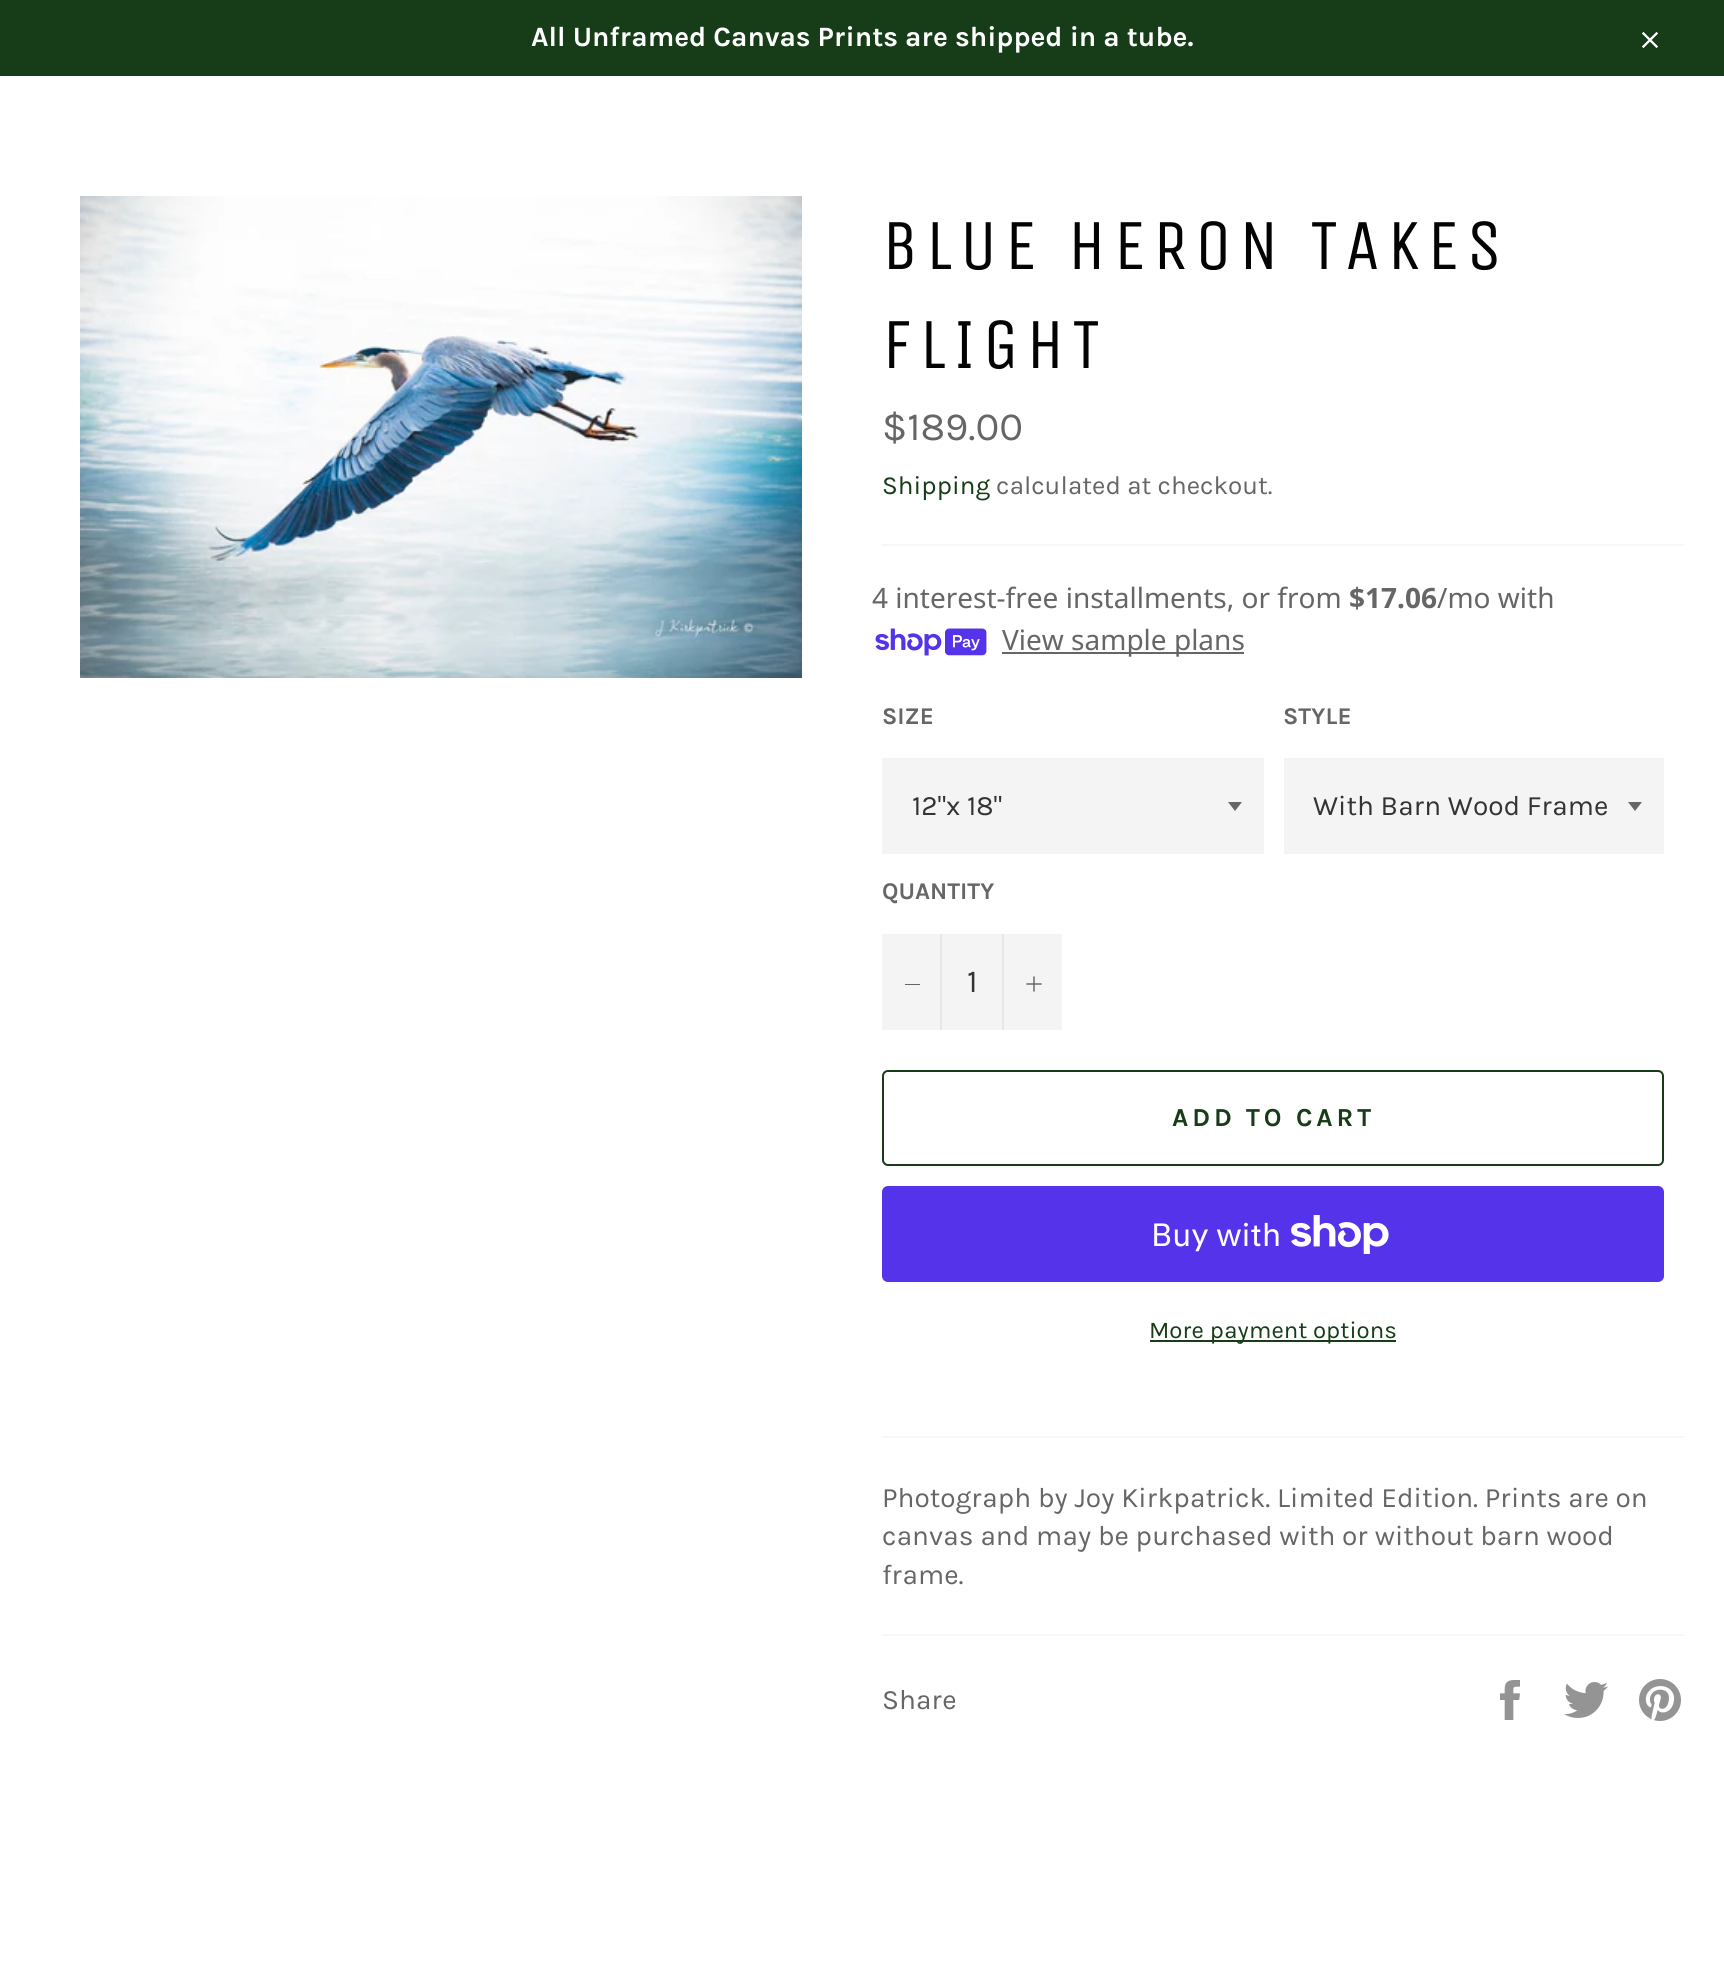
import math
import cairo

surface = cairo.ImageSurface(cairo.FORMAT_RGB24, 1724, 1978)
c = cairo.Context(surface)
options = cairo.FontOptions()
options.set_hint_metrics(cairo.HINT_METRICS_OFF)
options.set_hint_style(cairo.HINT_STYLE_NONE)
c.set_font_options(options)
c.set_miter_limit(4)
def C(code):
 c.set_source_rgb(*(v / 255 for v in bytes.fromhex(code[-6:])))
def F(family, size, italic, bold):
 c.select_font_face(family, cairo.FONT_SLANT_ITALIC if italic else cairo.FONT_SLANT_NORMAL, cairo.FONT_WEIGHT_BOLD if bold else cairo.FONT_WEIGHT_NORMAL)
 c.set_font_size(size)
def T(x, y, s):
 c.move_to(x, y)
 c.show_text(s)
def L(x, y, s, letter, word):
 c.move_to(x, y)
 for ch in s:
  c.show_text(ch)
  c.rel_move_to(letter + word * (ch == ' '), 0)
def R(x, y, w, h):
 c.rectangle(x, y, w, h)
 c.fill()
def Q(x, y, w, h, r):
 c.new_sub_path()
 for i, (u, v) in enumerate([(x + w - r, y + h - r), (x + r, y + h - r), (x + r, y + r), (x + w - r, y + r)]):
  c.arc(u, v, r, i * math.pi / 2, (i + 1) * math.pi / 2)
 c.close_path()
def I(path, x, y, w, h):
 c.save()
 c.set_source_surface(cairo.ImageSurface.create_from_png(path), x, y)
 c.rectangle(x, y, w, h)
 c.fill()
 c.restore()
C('163d17')
c.paint()
F('Karla',28,0,1)
C('ffffff')
T(531,46,'All Unframed Canvas Prints are shipped in a tube.')
I('1.png',1641,32,18,16)
R(0,76,1724,1902)
I('2.png',80,196,722,482)
F('Unica One',72,0,0)
C('030303')
L(882,269,'BLUE HERON TAKES',7.25,0)
L(882,368,'FLIGHT',7.25,0)
F('Karla',40,0,0)
C('666666')
T(882,440,'$189.00')
F('Karla',26,0,0)
C('163d17')
T(882,494,'Shipping')
C('666666')
T(996,494,'calculated at checkout.')
C('f7f7f7')
R(882,544,802,2)
F('Noto Sans',28,0,0)
C('666666')
T(872,608,'4 interest-free installments, or from')
F('Noto Sans',28,0,1)
T(1349,608,'$17.06')
F('Noto Sans',28,0,0)
T(1437,608,'/mo with')
I('3.png',875,628,112,28)
R(1002,652,242,2)
T(1002,650,'View sample plans')
F('Karla',24,0,1)
T(882,724,'SIZE')
C('f4f4f4')
R(882,758,382,96)
C('666666')
c.new_path()
c.move_to(1228,802)
c.line_to(1235,811)
c.line_to(1242,802)
c.close_path()
c.fill()
F('Karla',28,0,0)
C('333333')
T(912,815,'12"x 18"')
F('Karla',24,0,1)
C('666666')
T(1283,724,'STYLE')
C('f4f4f4')
R(1284,758,380,96)
C('666666')
c.new_path()
c.move_to(1628,802)
c.line_to(1635,811)
c.line_to(1642,802)
c.close_path()
c.fill()
F('Karla',28,0,0)
C('333333')
T(1313,815,'With Barn Wood Frame')
F('Karla',24,0,1)
C('666666')
T(882,899,'QUANTITY')
C('f4f4f4')
R(882,934,180,96)
C('e7e7e7')
R(940,934,2,96)
C('666666')
R(905,984,15,1)
F('Karla',32,0,0)
C('333333')
T(967,992,'1')
C('e7e7e7')
R(1002,934,2,96)
I('4.png',1026,976,16,16)
Q(883,1071,780,94,5)
C('163d17')
c.stroke()
F('Karla',26,0,1)
L(1172,1126,'ADD TO CART',3.9,0)
C('5433eb')
Q(882,1186,782,96,6)
c.fill()
F('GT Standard',32,0,0)
C('ffffff')
T(1151,1246,'Buy with')
I('5.png',1291,1215,98,39)
C('163d17')
R(1150,1340,246,2)
F('Karla',24,0,0)
T(1149,1338,'More payment options')
C('f7f7f7')
R(882,1436,802,2)
F('Karla',28,0,0)
C('666666')
T(882,1507,'Photograph by Joy Kirkpatrick. Limited Edition. Prints are on')
T(882,1545,'canvas and may be purchased with or without barn wood')
T(882,1584,'frame.')
C('f7f7f7')
R(882,1634,802,2)
C('666666')
T(882,1709,'Share')
I('6.png',1500,1680,20,40)
I('7.png',1564,1682,44,36)
I('8.png',1639,1679,42,42)
surface.write_to_png('o.png')
